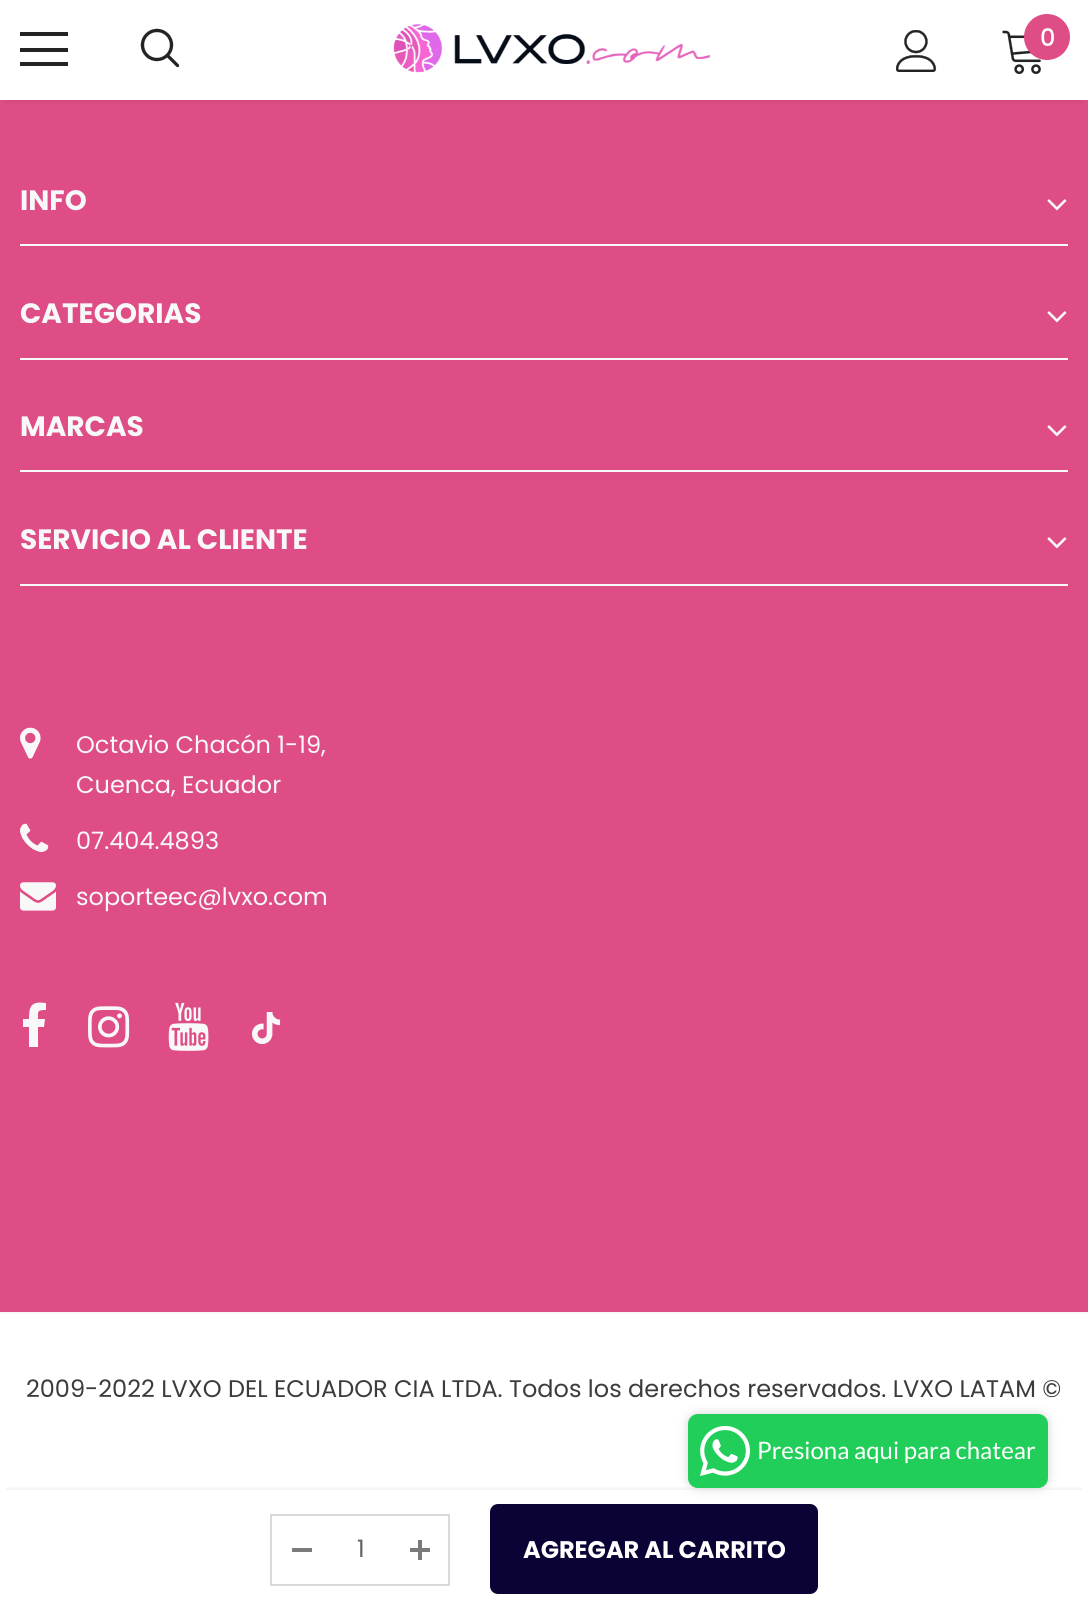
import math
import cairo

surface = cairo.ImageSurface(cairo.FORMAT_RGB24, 1088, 1608)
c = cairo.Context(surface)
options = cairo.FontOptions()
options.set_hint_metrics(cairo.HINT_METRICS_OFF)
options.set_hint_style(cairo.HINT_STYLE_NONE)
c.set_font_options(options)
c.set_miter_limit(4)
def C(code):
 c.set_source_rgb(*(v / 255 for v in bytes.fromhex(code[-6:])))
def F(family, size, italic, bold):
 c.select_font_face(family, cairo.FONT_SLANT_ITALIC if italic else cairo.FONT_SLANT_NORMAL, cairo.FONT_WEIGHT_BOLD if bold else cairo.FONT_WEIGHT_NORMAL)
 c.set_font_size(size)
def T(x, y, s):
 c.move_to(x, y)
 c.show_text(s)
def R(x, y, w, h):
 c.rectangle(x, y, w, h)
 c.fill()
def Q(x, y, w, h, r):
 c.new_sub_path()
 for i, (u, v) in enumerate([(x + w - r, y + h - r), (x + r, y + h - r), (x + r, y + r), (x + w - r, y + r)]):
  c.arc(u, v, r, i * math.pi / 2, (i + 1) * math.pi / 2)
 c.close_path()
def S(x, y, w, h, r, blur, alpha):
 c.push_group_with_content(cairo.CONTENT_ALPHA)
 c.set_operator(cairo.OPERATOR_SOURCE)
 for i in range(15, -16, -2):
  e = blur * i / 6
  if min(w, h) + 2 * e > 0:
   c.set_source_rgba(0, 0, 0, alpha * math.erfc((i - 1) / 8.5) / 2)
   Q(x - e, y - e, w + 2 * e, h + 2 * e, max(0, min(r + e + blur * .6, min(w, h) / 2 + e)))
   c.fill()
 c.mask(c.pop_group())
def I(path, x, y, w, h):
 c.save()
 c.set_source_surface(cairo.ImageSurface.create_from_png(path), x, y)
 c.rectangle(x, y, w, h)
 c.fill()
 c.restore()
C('de4d86')
c.paint()
C('000000')
S(6,12,1076,88,0,3,.12)
C('ffffff')
R(0,0,1088,100)
C('232323')
R(20,32,48,4)
R(20,48,48,4)
R(20,62,48,4)
I('1.png',140,28,40,40)
I('2.png',393,24,317,49)
I('3.png',896,30,41,42)
I('4.png',1002,30,39,44)
C('de4d86')
c.arc(1047,37,23,0,2 * math.pi)
c.fill()
F('Poppins Medium',24,0,0)
C('ffffff')
T(1040,46,'0')
C('f8f8f8')
R(20,244,1048,2)
F('Poppins',28,0,1)
T(20,210,'INFO')
I('5.png',1047,199,20,12)
R(20,358,1048,2)
T(20,323,'CATEGORIAS')
I('5.png',1047,311,20,12)
R(20,470,1048,2)
T(20,436,'MARCAS')
I('5.png',1047,425,20,12)
R(20,584,1048,2)
T(20,549,'SERVICIO AL CLIENTE')
I('5.png',1047,537,20,12)
I('6.png',20,727,21,32)
F('Poppins',24,0,0)
T(76,753,'Octavio Chacón 1-19,')
T(76,793,'Cuenca, Ecuador')
I('7.png',20,823,29,29)
T(76,849,'07.404.4893')
I('8.png',20,882,36,29)
T(76,905,'soporteec@lvxo.com')
c.new_path()
c.move_to(46,1003)
c.line_to(46,1010)
c.curve_to(37,1010,38,1011,38,1019)
c.line_to(45,1019)
c.line_to(44,1027)
c.line_to(38,1027)
c.line_to(38,1047)
c.line_to(29,1047)
c.line_to(29,1027)
c.line_to(23,1027)
c.line_to(23,1019)
c.line_to(29,1019)
c.curve_to(29,1006,31,1001,46,1003)
c.close_path()
c.fill()
I('9.png',88,1006,42,42)
I('10.png',168,1002,41,49)
I('11.png',251,1012,30,32)
C('ffffff')
R(0,1314,1088,294)
C('f8f8f8')
R(0,1312,1088,2)
C('3c3c3c')
T(26,1397,'2009-2022 LVXO DEL ECUADOR CIA LTDA. Todos los derechos reservados. LVXO LATAM ©')
c.save()
c.rectangle(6,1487,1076,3)
c.clip()
C('000000')
S(6,1490,1076,106,0,3,.1)
c.restore()
c.rectangle(271,1515,178,70)
C('dadada')
c.stroke()
C('7b7b7b')
R(292,1548,20,4)
C('646464')
T(357,1557,'1')
C('7b7b7b')
R(410,1548,20,4)
R(418,1540,4,20)
C('0b0335')
Q(491,1505,326,88,7)
c.fill_preserve()
c.stroke()
F('Poppins',24,0,1)
C('ffffff')
T(523,1558,'AGREGAR AL CARRITO')
C('d3d3d3')
S(688,1414,360,74,10,5,1)
C('22ce5a')
Q(688,1414,360,74,10)
c.fill()
I('12.png',700,1426,50,50)
F('Lato',24,0,0)
C('ffffff')
T(757,1459,'Presiona aqui para chatear')
surface.write_to_png('o.png')
